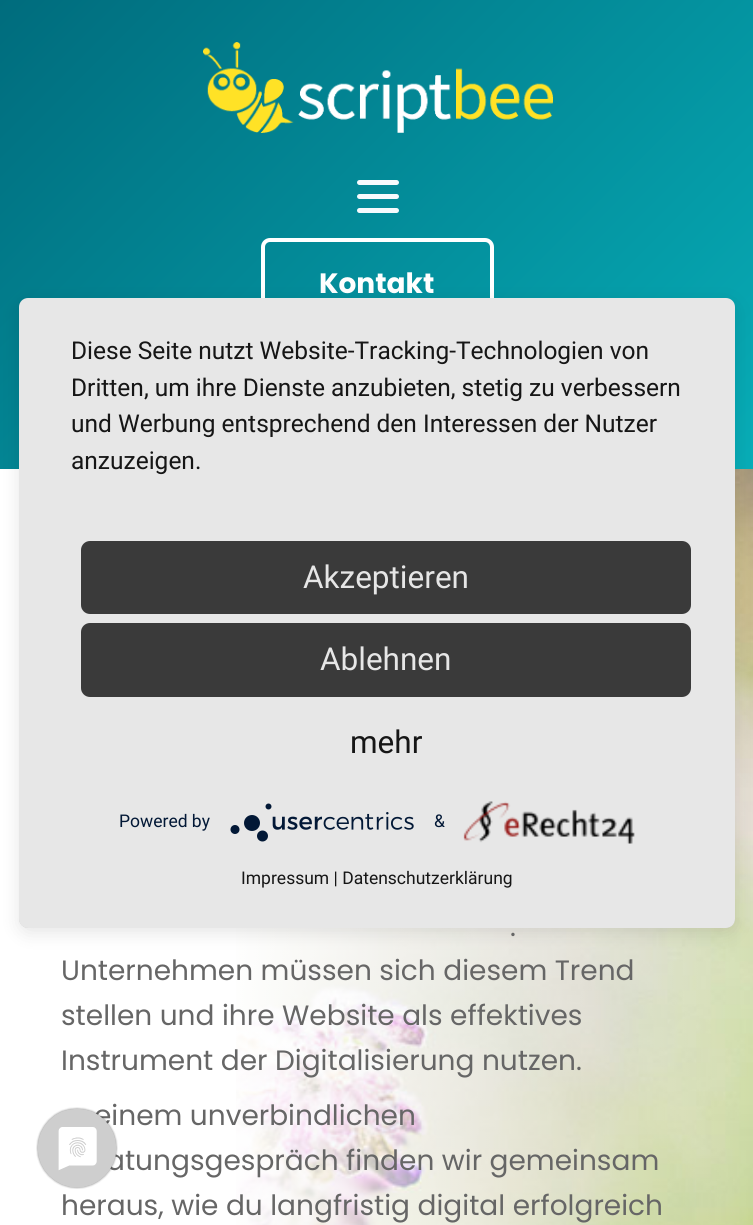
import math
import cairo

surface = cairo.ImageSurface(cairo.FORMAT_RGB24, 753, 1225)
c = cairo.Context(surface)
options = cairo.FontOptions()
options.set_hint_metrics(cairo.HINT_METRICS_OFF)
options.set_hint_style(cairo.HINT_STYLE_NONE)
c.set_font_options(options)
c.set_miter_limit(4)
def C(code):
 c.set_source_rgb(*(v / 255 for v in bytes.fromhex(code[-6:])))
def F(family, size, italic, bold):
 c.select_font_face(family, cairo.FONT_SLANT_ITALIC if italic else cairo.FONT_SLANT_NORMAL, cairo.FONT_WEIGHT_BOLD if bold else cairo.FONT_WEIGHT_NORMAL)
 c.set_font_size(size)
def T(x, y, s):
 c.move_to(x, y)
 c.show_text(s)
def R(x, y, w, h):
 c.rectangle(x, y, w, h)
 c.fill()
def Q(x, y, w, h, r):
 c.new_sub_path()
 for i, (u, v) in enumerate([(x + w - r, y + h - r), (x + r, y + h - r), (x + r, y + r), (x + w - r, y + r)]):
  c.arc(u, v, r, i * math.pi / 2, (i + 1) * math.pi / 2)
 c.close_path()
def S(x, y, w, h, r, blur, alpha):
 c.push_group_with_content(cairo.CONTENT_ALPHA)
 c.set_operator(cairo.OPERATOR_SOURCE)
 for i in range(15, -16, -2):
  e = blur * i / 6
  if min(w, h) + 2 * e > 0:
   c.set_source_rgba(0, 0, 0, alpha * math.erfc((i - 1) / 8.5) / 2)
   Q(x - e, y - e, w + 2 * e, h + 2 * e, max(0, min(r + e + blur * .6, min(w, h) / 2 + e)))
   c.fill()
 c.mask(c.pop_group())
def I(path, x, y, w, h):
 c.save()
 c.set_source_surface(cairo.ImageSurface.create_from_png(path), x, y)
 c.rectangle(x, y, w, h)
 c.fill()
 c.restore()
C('ffffff')
c.paint()
gradient = cairo.LinearGradient(71,-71,683,540)
gradient.add_color_stop_rgba(0,0,0.424,0.49,1)
gradient.add_color_stop_rgba(1,0.027,0.678,0.718,1)
c.set_source(gradient)
R(0,0,753,469)
I('1.png',203,42,350,91)
C('f6fafd')
Q(357,180,42,5,2.5)
c.fill()
Q(357,194,42,5,2.5)
c.fill()
Q(357,208,42,5,2.5)
c.fill()
Q(263,240,229,87,7)
C('ffffff')
c.set_line_width(4)
c.stroke()
F('Poppins',28,0,1)
T(319,293,'Kontakt')
I('5.png',236,469,517,756)
C('000000')
S(19,303,716,630,9,9,.1)
c.save()
Q(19,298,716,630,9)
c.clip()
S(19,308,716,630,0,31.5,.3)
c.restore()
C('e7e7e7')
Q(19,298,716,630,9)
c.fill()
F('Roboto',24.5,0,0)
C('161616')
T(71,359,'Diese Seite nutzt Website-Tracking-Technologien von')
T(71,396,'Dritten, um ihre Dienste anzubieten, stetig zu verbessern')
T(71,432,'und Werbung entsprechend den Interessen der Nutzer')
T(71,469,'anzuzeigen.')
C('3a3a3a')
Q(81,541,610,73,9)
c.fill()
F('Roboto',31.5,0,0)
C('e6e6e6')
T(303,588,'Akzeptieren')
C('3a3a3a')
Q(81,623,610,74,9)
c.fill()
C('e6e6e6')
T(320,670,'Ablehnen')
C('161616')
T(350,753,'mehr')
F('Roboto',17.5,0,0)
C('021836')
T(119,827,'Powered by')
I('2.png',230,803,184,39)
T(434,827,'&')
I('3.png',463,801,172,43)
C('161616')
T(241,884,'Impressum | Datenschutzerklärung')
F('Poppins',28,0,0)
C('666666')
T(94,1125,'einem unverbindlichen')
T(106,1170,'atungsgespräch finden wir gemeinsam')
I('4.png',36,1107,82,82)
T(510,936,'.')
T(61,980,'Unternehmen müssen sich diesem Trend')
T(61,1025,'stellen und ihre Website als effektives')
T(61,1070,'Instrument der Digitalisierung nutzen.')
T(61,1215,'heraus, wie du langfristig digital erfolgreich')
surface.write_to_png('o.png')
